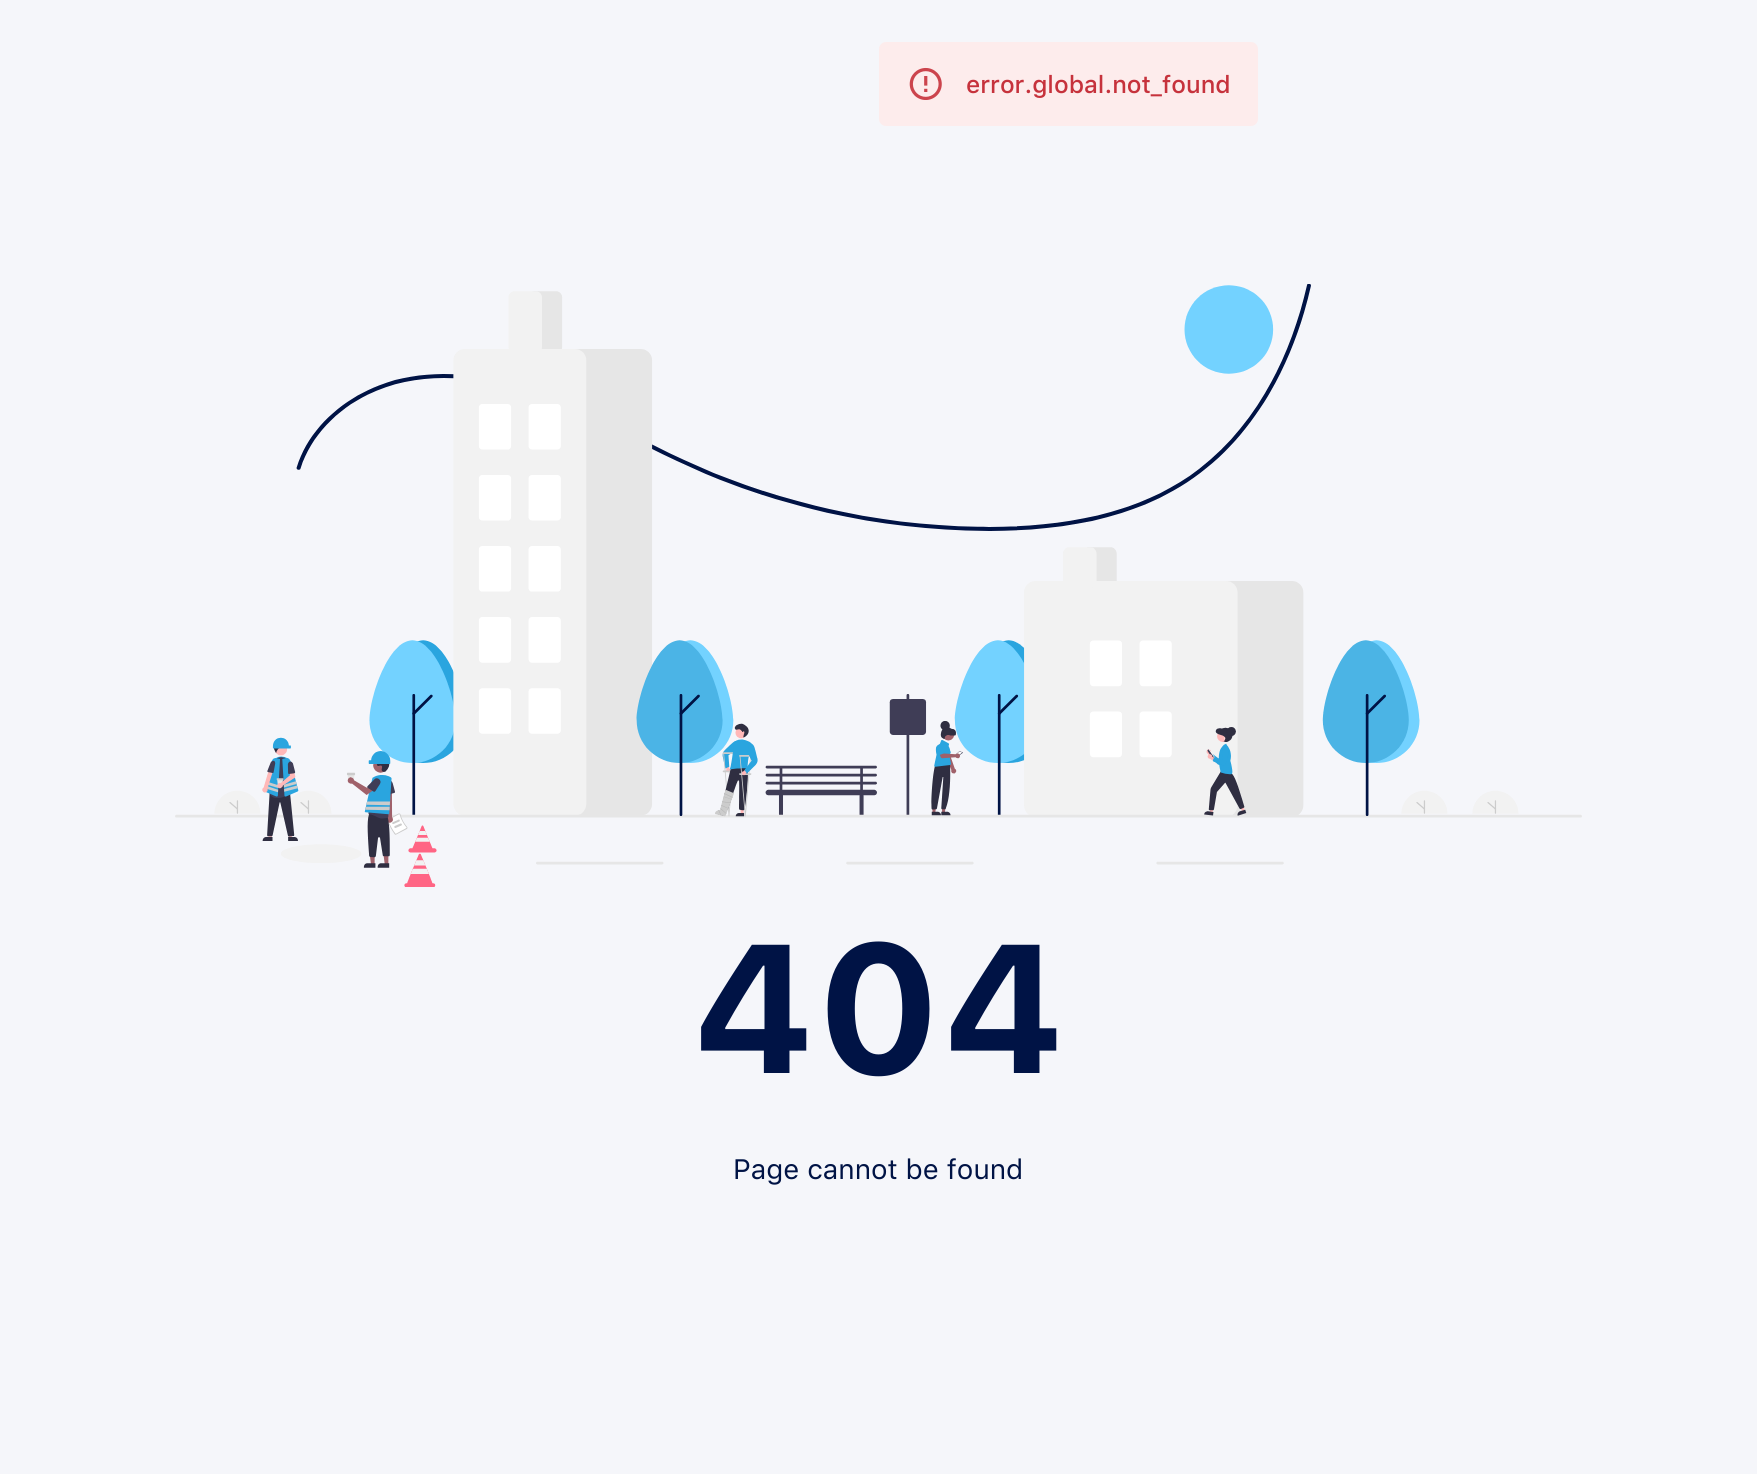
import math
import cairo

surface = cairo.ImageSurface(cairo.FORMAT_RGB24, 1757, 1474)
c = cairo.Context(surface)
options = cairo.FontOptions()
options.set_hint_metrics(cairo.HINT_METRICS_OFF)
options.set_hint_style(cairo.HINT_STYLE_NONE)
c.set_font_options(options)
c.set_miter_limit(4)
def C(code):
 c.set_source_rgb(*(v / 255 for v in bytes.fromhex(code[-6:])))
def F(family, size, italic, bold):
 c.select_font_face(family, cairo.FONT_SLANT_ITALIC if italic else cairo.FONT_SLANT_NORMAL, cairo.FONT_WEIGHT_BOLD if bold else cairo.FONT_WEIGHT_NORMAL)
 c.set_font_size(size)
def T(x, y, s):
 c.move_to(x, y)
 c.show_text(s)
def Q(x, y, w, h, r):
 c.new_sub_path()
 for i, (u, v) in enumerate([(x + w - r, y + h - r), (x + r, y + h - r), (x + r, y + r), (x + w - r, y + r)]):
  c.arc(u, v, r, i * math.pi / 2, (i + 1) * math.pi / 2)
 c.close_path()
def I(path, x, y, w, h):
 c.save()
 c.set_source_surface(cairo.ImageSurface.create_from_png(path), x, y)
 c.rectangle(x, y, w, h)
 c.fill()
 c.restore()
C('f5f6fa')
c.paint()
C('fdecec')
Q(879,42,379,84,7)
c.fill()
I('1.png',909,67,33,33)
F('SF Pro Text Medium',24.5,0,0)
C('c6323c')
T(966,93,'error.global.not_found')
I('2.png',175,284,1407,603)
F('SF Pro Text',182,0,1)
C('001345')
T(691,1073,'404')
F('SF Pro Text',28,0,0)
T(733,1179,'Page cannot be found')
surface.write_to_png('o.png')
